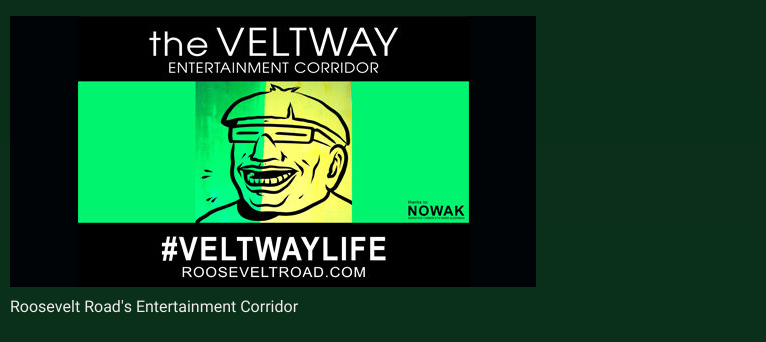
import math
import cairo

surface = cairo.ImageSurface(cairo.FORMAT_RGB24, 766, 342)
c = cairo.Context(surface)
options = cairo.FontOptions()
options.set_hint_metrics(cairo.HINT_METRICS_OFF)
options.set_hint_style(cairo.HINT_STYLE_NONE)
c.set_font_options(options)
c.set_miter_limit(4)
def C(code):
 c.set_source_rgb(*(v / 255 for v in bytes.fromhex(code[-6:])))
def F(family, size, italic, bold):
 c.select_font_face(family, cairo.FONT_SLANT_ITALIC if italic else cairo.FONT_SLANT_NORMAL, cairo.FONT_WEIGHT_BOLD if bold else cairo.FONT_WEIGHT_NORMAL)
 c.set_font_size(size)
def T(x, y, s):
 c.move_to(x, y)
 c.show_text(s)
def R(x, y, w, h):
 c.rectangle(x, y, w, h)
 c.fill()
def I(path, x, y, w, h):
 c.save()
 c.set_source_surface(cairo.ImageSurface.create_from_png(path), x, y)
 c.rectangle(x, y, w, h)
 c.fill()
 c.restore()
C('ffffff')
c.paint()
gradient = cairo.LinearGradient(383,0,383,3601)
gradient.add_color_stop_rgba(0,0.039,0.18,0.098,1)
gradient.add_color_stop_rgba(1,0.094,0.278,0.145,1)
c.set_source(gradient)
R(0,0,766,342)
I('1.png',10,16,526,271)
F('Roboto',16,0,0)
C('f0ebeb')
T(10,312,'Roosevelt Road\'s Entertainment Corridor')
surface.write_to_png('o.png')
